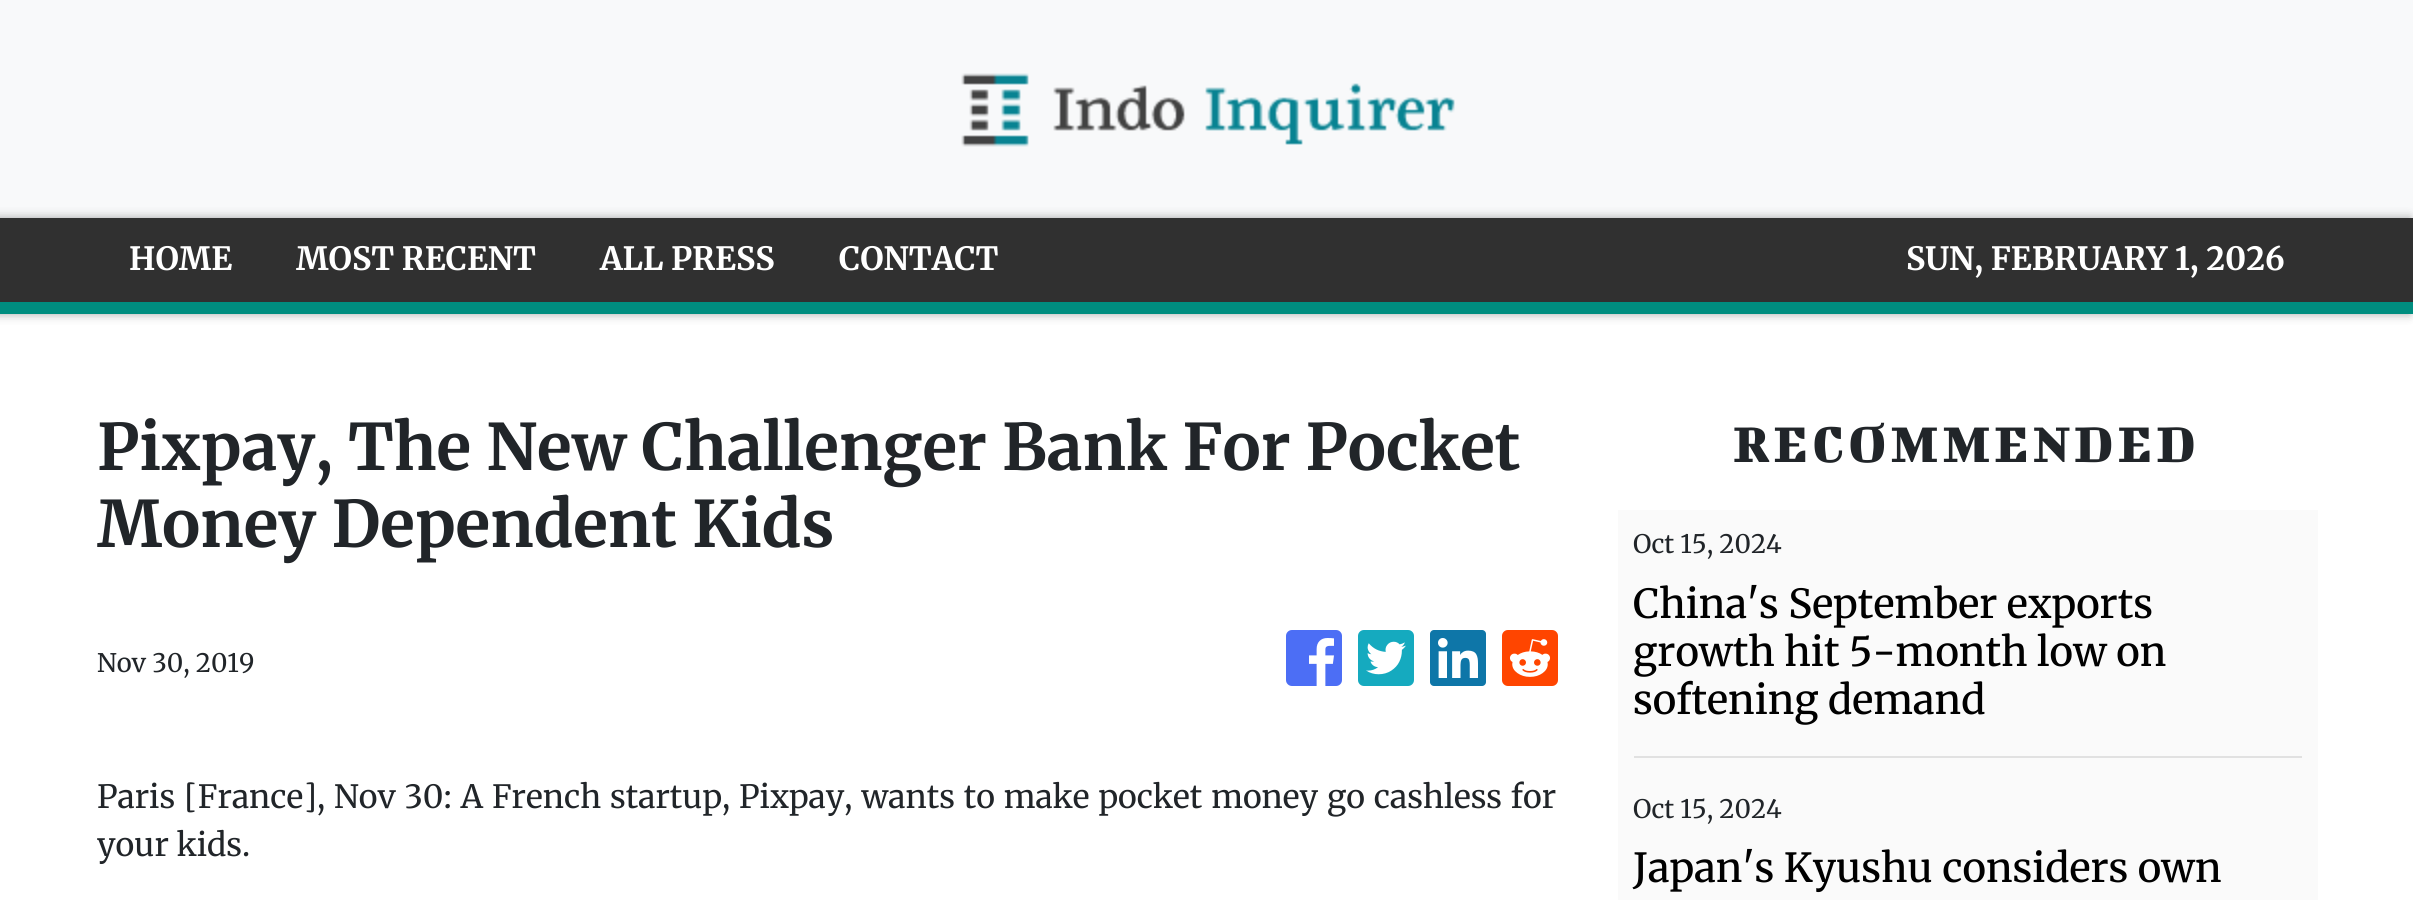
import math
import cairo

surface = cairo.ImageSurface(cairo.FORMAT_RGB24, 2413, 900)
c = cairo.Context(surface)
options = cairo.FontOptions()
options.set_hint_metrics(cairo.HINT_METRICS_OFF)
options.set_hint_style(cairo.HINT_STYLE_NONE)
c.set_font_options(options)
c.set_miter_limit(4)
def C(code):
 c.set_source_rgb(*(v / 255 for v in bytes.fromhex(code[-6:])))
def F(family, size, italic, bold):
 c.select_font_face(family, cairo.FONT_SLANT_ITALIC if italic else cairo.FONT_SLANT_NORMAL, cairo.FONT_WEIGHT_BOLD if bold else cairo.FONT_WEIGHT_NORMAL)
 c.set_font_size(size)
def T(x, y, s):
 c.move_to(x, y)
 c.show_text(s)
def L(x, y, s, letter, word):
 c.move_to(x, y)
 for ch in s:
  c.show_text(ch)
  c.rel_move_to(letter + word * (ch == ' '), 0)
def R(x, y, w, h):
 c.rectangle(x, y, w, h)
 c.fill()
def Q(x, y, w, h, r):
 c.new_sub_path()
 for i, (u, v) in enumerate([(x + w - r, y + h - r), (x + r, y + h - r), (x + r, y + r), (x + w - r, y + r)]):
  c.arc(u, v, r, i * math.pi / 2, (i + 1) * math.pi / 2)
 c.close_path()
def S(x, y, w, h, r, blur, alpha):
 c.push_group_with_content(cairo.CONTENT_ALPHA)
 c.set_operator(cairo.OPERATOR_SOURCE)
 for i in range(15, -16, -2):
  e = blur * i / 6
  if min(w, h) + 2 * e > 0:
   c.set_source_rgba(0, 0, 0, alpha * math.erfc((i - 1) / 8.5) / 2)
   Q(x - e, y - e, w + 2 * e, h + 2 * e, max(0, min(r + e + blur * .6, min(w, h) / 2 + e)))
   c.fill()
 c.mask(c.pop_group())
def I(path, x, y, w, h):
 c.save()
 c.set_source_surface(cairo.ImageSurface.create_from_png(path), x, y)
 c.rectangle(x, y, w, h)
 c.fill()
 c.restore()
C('ffffff')
c.paint()
C('f8f9fa')
R(0,0,2413,218)
I('1.png',961,73,494,74)
C('000000')
S(-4,218,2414,96,0,5,.35)
C('303030')
R(0,218,2413,84)
C('008d7f')
R(0,302,2413,12)
F('Merriweather',32,0,1)
C('ffffff')
T(129,270,'HOME')
T(296,270,'MOST RECENT')
T(600,270,'ALL PRESS')
T(839,270,'CONTACT')
T(1906,270,'SUN, FEBRUARY 1, 2026')
F('Merriweather',64,0,1)
C('212529')
T(97,470,'Pixpay, The New Challenger Bank For Pocket')
T(97,547,'Money Dependent Kids')
F('Merriweather',25.5,0,0)
T(97,672,'Nov 30, 2019')
I('2.png',1286,630,56,56)
I('3.png',1358,630,56,56)
I('4.png',1430,630,56,56)
I('5.png',1502,630,56,56)
F('Merriweather',32,0,0)
L(97,808,'Paris [France], Nov 30: A French startup, Pixpay, wants to make pocket money go cashless for',0,1.25)
T(97,856,'your kids.')
F('Bigshot One',56,0,0)
L(1733,462,'RECOMMENDED',4,0)
C('fafafa')
R(1618,510,700,390)
F('Merriweather',25.5,0,0)
C('212529')
T(1633,553,'Oct 15, 2024')
F('Merriweather Medium',40,0,0)
C('000000')
T(1633,618,'China\'s September exports')
T(1633,666,'growth hit 5-month low on')
T(1633,714,'softening demand')
C('e1e1e1')
R(1634,756,668,2)
F('Merriweather',25.5,0,0)
C('212529')
T(1633,818,'Oct 15, 2024')
F('Merriweather Medium',40,0,0)
C('000000')
T(1633,882,'Japan\'s Kyushu considers own')
surface.write_to_png('o.png')
